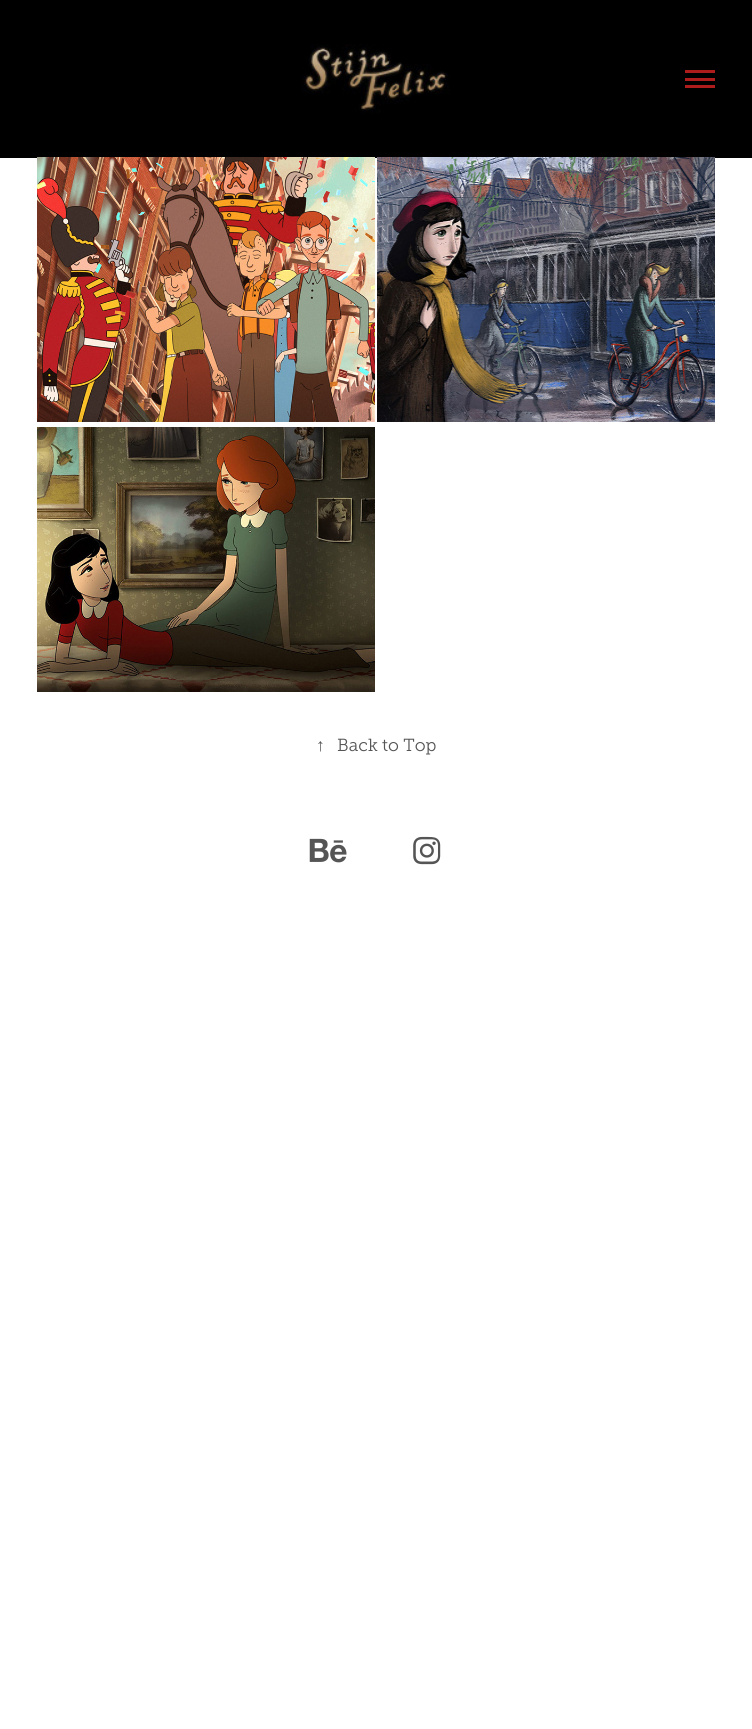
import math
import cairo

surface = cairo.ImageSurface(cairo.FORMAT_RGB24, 752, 1729)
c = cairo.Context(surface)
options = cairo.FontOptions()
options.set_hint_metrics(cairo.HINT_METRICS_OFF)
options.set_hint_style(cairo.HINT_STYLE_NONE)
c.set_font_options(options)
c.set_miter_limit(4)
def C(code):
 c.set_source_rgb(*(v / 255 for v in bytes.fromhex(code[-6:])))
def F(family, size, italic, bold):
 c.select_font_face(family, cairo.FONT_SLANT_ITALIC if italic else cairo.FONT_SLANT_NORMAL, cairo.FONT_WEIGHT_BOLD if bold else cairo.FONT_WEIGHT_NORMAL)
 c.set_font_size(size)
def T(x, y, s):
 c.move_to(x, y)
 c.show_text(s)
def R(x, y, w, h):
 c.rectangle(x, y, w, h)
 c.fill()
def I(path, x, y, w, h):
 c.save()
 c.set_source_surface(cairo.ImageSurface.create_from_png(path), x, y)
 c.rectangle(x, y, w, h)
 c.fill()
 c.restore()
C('ffffff')
c.paint()
C('000000')
R(0,0,752,158)
I('1.png',301,44,149,70)
C('af1c1c')
R(685,70,30,3)
R(685,78,30,3)
R(685,85,30,3)
I('2.png',37,157,338,265)
I('3.png',377,157,338,265)
I('4.png',37,427,338,265)
F('Liberation Serif',17.5,0,0)
C('555555')
T(316,751,'↑')
F('Museo Slab Light',17.5,0,0)
T(337,751,'Back to Top')
I('5.png',309,838,38,25)
I('6.png',413,836,28,29)
surface.write_to_png('o.png')
